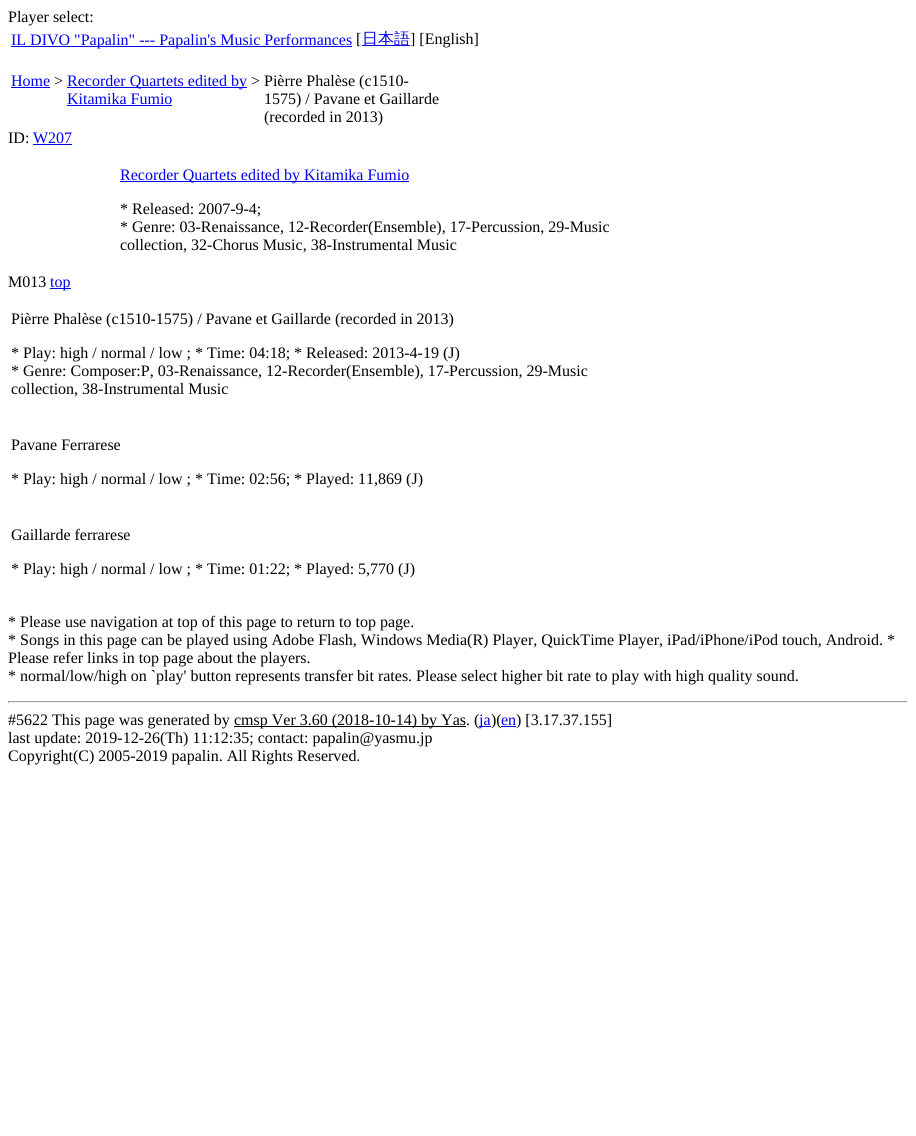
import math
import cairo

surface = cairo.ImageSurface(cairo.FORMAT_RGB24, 916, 1136)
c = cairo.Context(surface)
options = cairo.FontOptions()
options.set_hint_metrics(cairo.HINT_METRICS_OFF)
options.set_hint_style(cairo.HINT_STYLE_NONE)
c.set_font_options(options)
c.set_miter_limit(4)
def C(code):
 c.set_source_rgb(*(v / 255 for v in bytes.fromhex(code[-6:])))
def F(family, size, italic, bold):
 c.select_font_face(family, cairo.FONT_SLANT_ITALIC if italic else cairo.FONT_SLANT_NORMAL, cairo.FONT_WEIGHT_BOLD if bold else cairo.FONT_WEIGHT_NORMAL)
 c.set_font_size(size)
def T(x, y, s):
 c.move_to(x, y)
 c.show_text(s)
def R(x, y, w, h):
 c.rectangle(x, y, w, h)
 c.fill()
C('ffffff')
c.paint()
F('Liberation Serif',16,0,0)
C('000000')
T(8,22,'Player select:')
C('0000ee')
R(11,46,341,1)
T(11,45,'IL DIVO "Papalin" --- Papalin\'s Music Performances')
C('000000')
T(356,44,'[')
C('0000ee')
R(362,45,48,1)
F('WenQuanYi Zen Hei Medium',16,0,0)
T(362,44,'日本語')
F('Liberation Serif',16,0,0)
C('000000')
T(410,44,'] [English]')
C('0000ee')
T(11,86,'Home')
R(11,87,39,1)
C('000000')
T(54,86,'>')
C('0000ee')
R(67,87,180,1)
T(67,86,'Recorder Quartets edited by')
T(67,104,'Kitamika Fumio')
R(67,105,105,1)
C('000000')
T(251,86,'> Pièrre Phalèse (c1510-')
T(264,104,'1575) / Pavane et Gaillarde')
T(264,122,'(recorded in 2013)')
T(8,143,'ID:')
C('0000ee')
T(33,143,'W207')
R(33,144,39,1)
R(120,181,289,1)
T(120,180,'Recorder Quartets edited by Kitamika Fumio')
C('000000')
T(120,214,'* Released: 2007-9-4;')
T(120,232,'* Genre: 03-Renaissance, 12-Recorder(Ensemble), 17-Percussion, 29-Music')
T(120,250,'collection, 32-Chorus Music, 38-Instrumental Music')
T(8,287,'M013')
C('0000ee')
R(50,288,21,1)
T(50,287,'top')
C('000000')
T(11,324,'Pièrre Phalèse (c1510-1575) / Pavane et Gaillarde (recorded in 2013)')
T(11,358,'* Play: high / normal / low ; * Time: 04:18; * Released: 2013-4-19 (J)')
T(11,376,'* Genre: Composer:P, 03-Renaissance, 12-Recorder(Ensemble), 17-Percussion, 29-Music')
T(11,394,'collection, 38-Instrumental Music')
T(11,450,'Pavane Ferrarese')
T(11,484,'* Play: high / normal / low ; * Time: 02:56; * Played: 11,869 (J)')
T(11,540,'Gaillarde ferrarese')
T(11,574,'* Play: high / normal / low ; * Time: 01:22; * Played: 5,770 (J)')
T(8,627,'* Please use navigation at top of this page to return to top page.')
T(8,645,'* Songs in this page can be played using Adobe Flash, Windows Media(R) Player, QuickTime Player, iPad/iPhone/iPod touch, Android. *')
T(8,663,'Please refer links in top page about the players.')
T(8,681,'* normal/low/high on `play\' button represents transfer bit rates. Please select higher bit rate to play with high quality sound.')
C('9f9f9f')
R(8,701,900,1)
C('eeeeee')
R(907,701,1,2)
R(8,702,900,1)
C('9f9f9f')
R(8,701,1,2)
C('000000')
T(8,725,'#5622 This page was generated by')
R(234,726,232,1)
T(234,725,'cmsp Ver 3.60 (2018-10-14) by Yas. (')
C('0000ee')
R(479,726,12,1)
T(479,725,'ja')
C('000000')
T(491,725,')(')
C('0000ee')
T(501,725,'en')
R(501,726,15,1)
C('000000')
T(516,725,') [3.17.37.155]')
T(8,743,'last update: 2019-12-26(Th) 11:12:35; contact: papalin@yasmu.jp')
T(8,761,'Copyright(C) 2005-2019 papalin. All Rights Reserved.')
surface.write_to_png('o.png')
